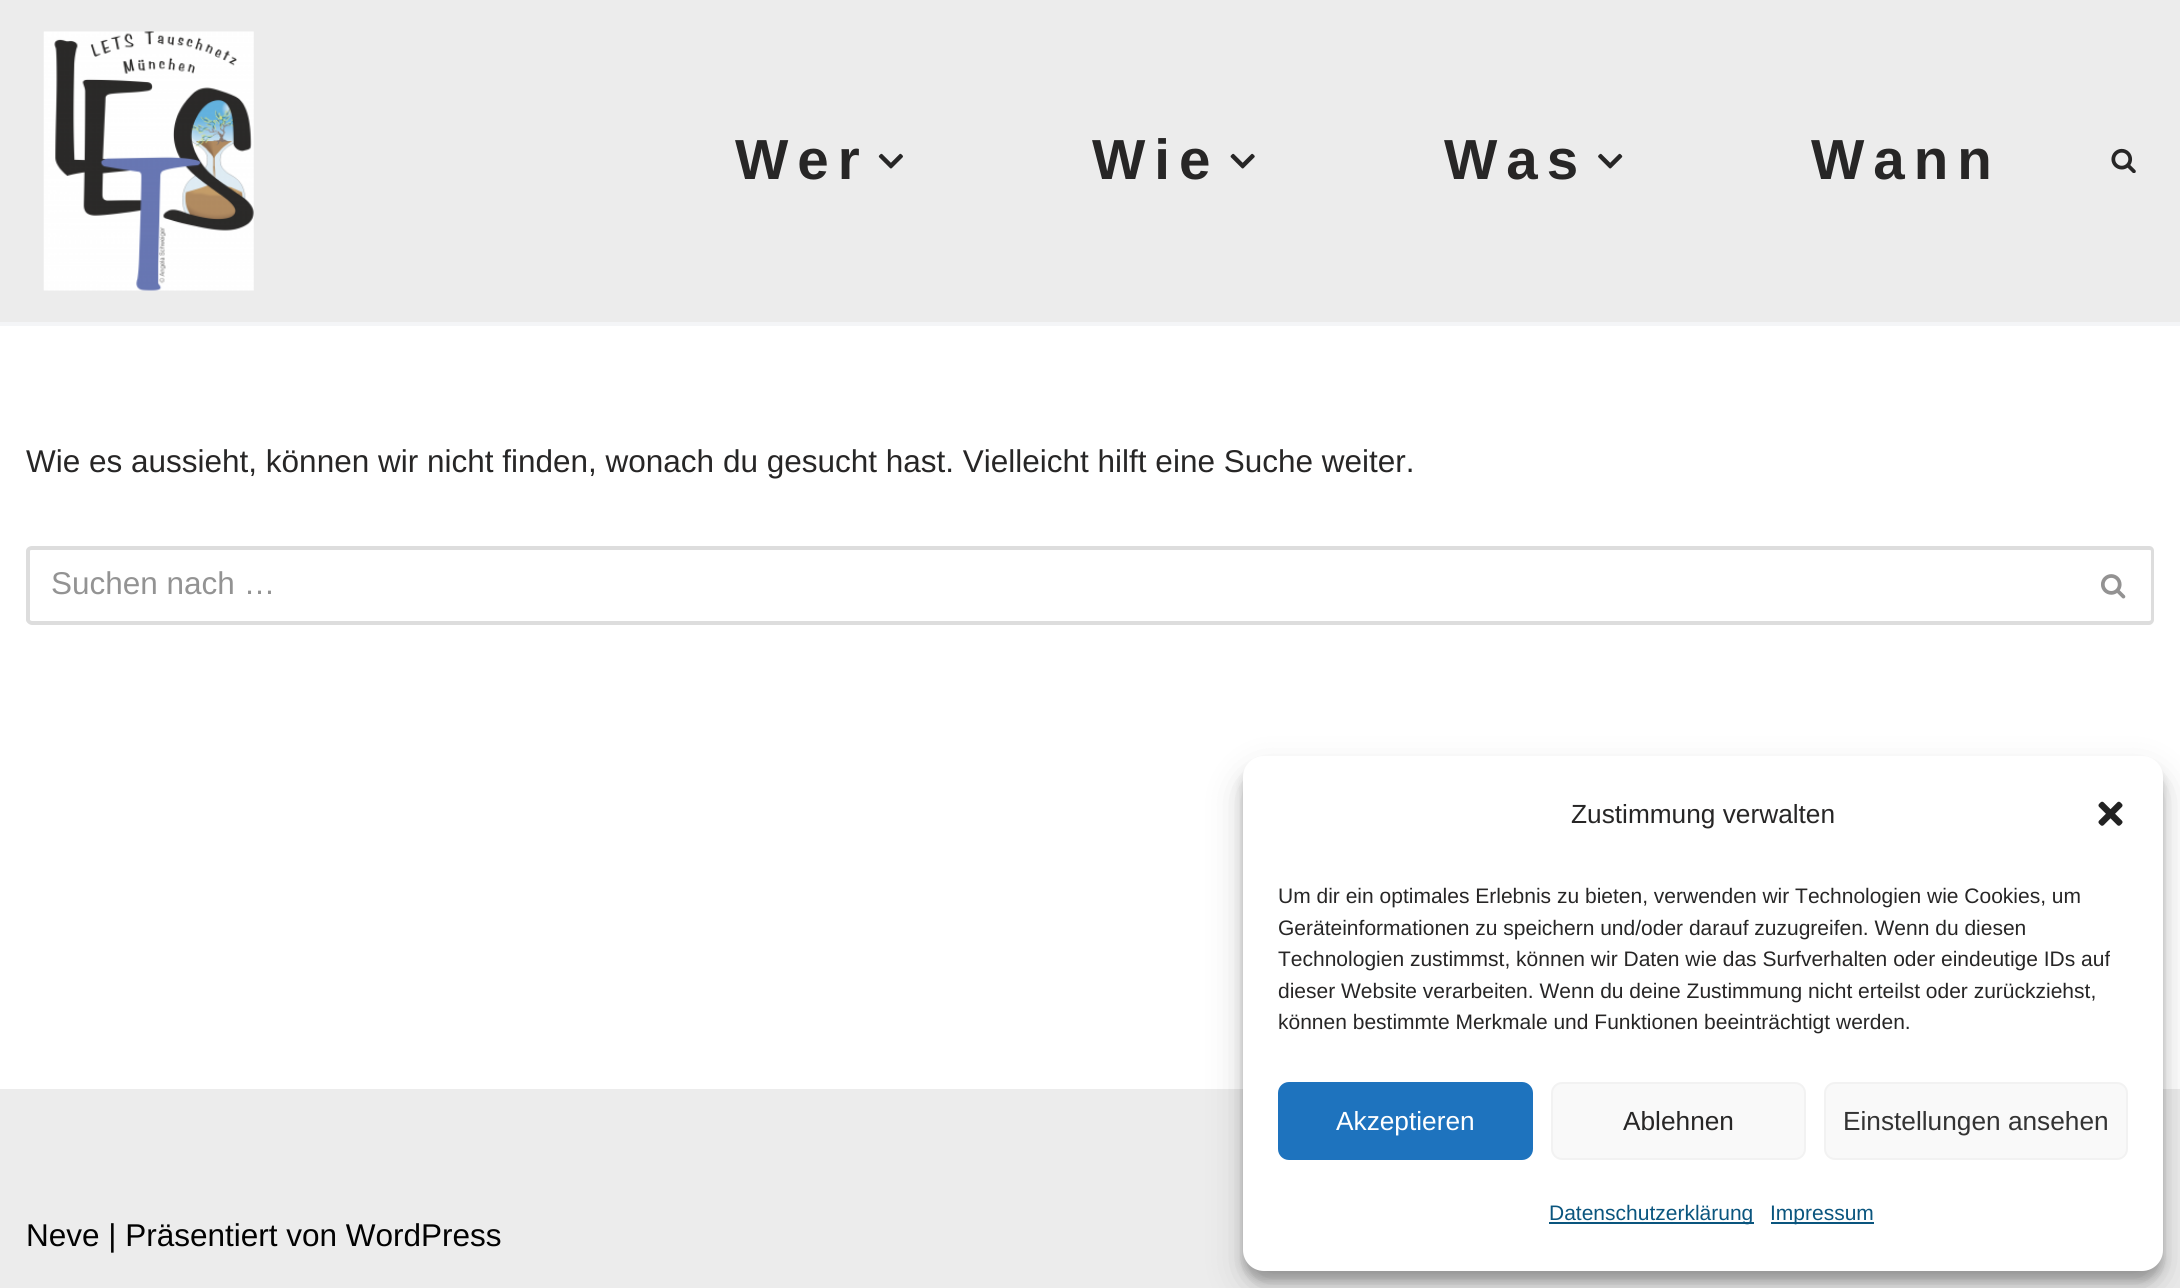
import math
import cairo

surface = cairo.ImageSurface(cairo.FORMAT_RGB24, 2180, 1288)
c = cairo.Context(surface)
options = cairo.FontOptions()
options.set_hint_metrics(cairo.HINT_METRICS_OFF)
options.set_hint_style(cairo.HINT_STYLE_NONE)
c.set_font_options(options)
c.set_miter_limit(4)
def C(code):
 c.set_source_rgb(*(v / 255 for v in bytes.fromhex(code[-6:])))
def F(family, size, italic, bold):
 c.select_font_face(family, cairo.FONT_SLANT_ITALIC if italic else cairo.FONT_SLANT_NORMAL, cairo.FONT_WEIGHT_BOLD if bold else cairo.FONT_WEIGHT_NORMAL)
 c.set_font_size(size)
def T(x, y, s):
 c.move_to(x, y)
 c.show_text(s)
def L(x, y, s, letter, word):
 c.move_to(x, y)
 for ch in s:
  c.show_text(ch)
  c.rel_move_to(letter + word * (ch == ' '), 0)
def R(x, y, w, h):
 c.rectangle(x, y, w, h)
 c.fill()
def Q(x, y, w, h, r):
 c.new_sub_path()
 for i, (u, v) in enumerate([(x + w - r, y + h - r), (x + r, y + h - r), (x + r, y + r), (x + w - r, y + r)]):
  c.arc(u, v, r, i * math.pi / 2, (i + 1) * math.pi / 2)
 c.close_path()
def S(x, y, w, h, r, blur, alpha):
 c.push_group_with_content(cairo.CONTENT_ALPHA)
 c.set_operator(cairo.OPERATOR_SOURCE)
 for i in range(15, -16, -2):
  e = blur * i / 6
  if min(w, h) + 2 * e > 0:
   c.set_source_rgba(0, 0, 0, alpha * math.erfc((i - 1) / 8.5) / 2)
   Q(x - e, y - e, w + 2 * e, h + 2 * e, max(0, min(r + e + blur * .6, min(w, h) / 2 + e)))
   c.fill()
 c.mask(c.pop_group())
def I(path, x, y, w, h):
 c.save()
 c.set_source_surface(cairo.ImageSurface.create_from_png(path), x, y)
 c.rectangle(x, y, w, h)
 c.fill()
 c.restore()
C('ffffff')
c.paint()
C('ececec')
R(0,0,2180,322)
C('f4f5f7')
R(0,322,2180,4)
I('1.png',43,31,211,260)
F('Liberation Sans',56.5,0,1)
C('272626')
L(735,179,'Wer',9,0)
I('2.png',878,153,25,16)
L(1092,179,'Wie',9,0)
I('3.png',1230,153,25,16)
L(1444,179,'Was',9,0)
I('4.png',1598,153,25,16)
L(1811,179,'Wann',9,0)
I('5.png',2111,148,25,25)
F('Liberation Sans',31.5,0,0)
T(26,472,'Wie es aussieht, können wir nicht finden, wonach du gesucht hast. Vielleicht hilft eine Suche weiter.')
C('dddddd')
c.set_fill_rule(cairo.FILL_RULE_EVEN_ODD)
c.new_path()
c.move_to(32,546)
c.line_to(2076,546)
c.line_to(2076,625)
c.line_to(32,625)
c.curve_to(29,625,26,622,26,620)
c.line_to(26,551)
c.curve_to(26,548,29,546,32,546)
c.close_path()
c.move_to(32,550)
c.line_to(2076,550)
c.line_to(2076,621)
c.line_to(32,621)
c.curve_to(31,621,30,620,30,620)
c.line_to(30,551)
c.curve_to(30,550,31,550,32,550)
c.close_path()
c.fill()
C('939393')
T(51,594,'Suchen nach …')
C('dddddd')
c.new_path()
c.move_to(2076,546)
c.line_to(2149,546)
c.curve_to(2152,546,2154,548,2154,551)
c.line_to(2154,620)
c.curve_to(2154,622,2152,625,2149,625)
c.line_to(2076,625)
c.close_path()
c.move_to(2076,550)
c.line_to(2149,550)
c.curve_to(2150,550,2151,550,2151,551)
c.line_to(2151,620)
c.curve_to(2151,620,2150,621,2149,621)
c.line_to(2076,621)
c.close_path()
c.fill()
I('6.png',2101,574,25,25)
C('ececec')
R(0,1089,2180,199)
C('020202')
T(26,1246,'Neve | Präsentiert von WordPress')
C('000000')
S(1243,767,920,514,21,5,.23)
S(1243,774,920,514,21,17.5,.19)
C('ffffff')
Q(1243,756,920,515,21)
c.fill()
F('Liberation Sans',26.25,0,0)
C('272626')
T(1571,823,'Zustimmung verwalten')
I('7.png',2098,801,25,25)
F('Liberation Sans',21,0,0)
T(1278,903,'Um dir ein optimales Erlebnis zu bieten, verwenden wir Technologien wie Cookies, um')
T(1278,935,'Geräteinformationen zu speichern und/oder darauf zuzugreifen. Wenn du diesen')
T(1278,966,'Technologien zustimmst, können wir Daten wie das Surfverhalten oder eindeutige IDs auf')
T(1278,998,'dieser Website verarbeiten. Wenn du deine Zustimmung nicht erteilst oder zurückziehst,')
T(1278,1029,'können bestimmte Merkmale und Funktionen beeinträchtigt werden.')
C('1e73be')
Q(1279,1083,253,76,10)
c.fill_preserve()
c.stroke()
F('Liberation Sans',26.25,0,0)
C('ffffff')
T(1336,1130,'Akzeptieren')
C('f9f9f9')
Q(1552,1083,253,76,10)
c.fill_preserve()
C('f2f2f2')
c.stroke()
C('272626')
T(1623,1130,'Ablehnen')
C('f9f9f9')
Q(1825,1083,302,76,10)
c.fill_preserve()
C('f2f2f2')
c.stroke()
C('333333')
T(1843,1130,'Einstellungen ansehen')
C('0a557e')
R(1549,1222,205,2)
F('Liberation Sans',21,0,0)
T(1549,1220,'Datenschutzerklärung')
R(1771,1222,103,2)
T(1770,1220,'Impressum')
surface.write_to_png('o.png')
